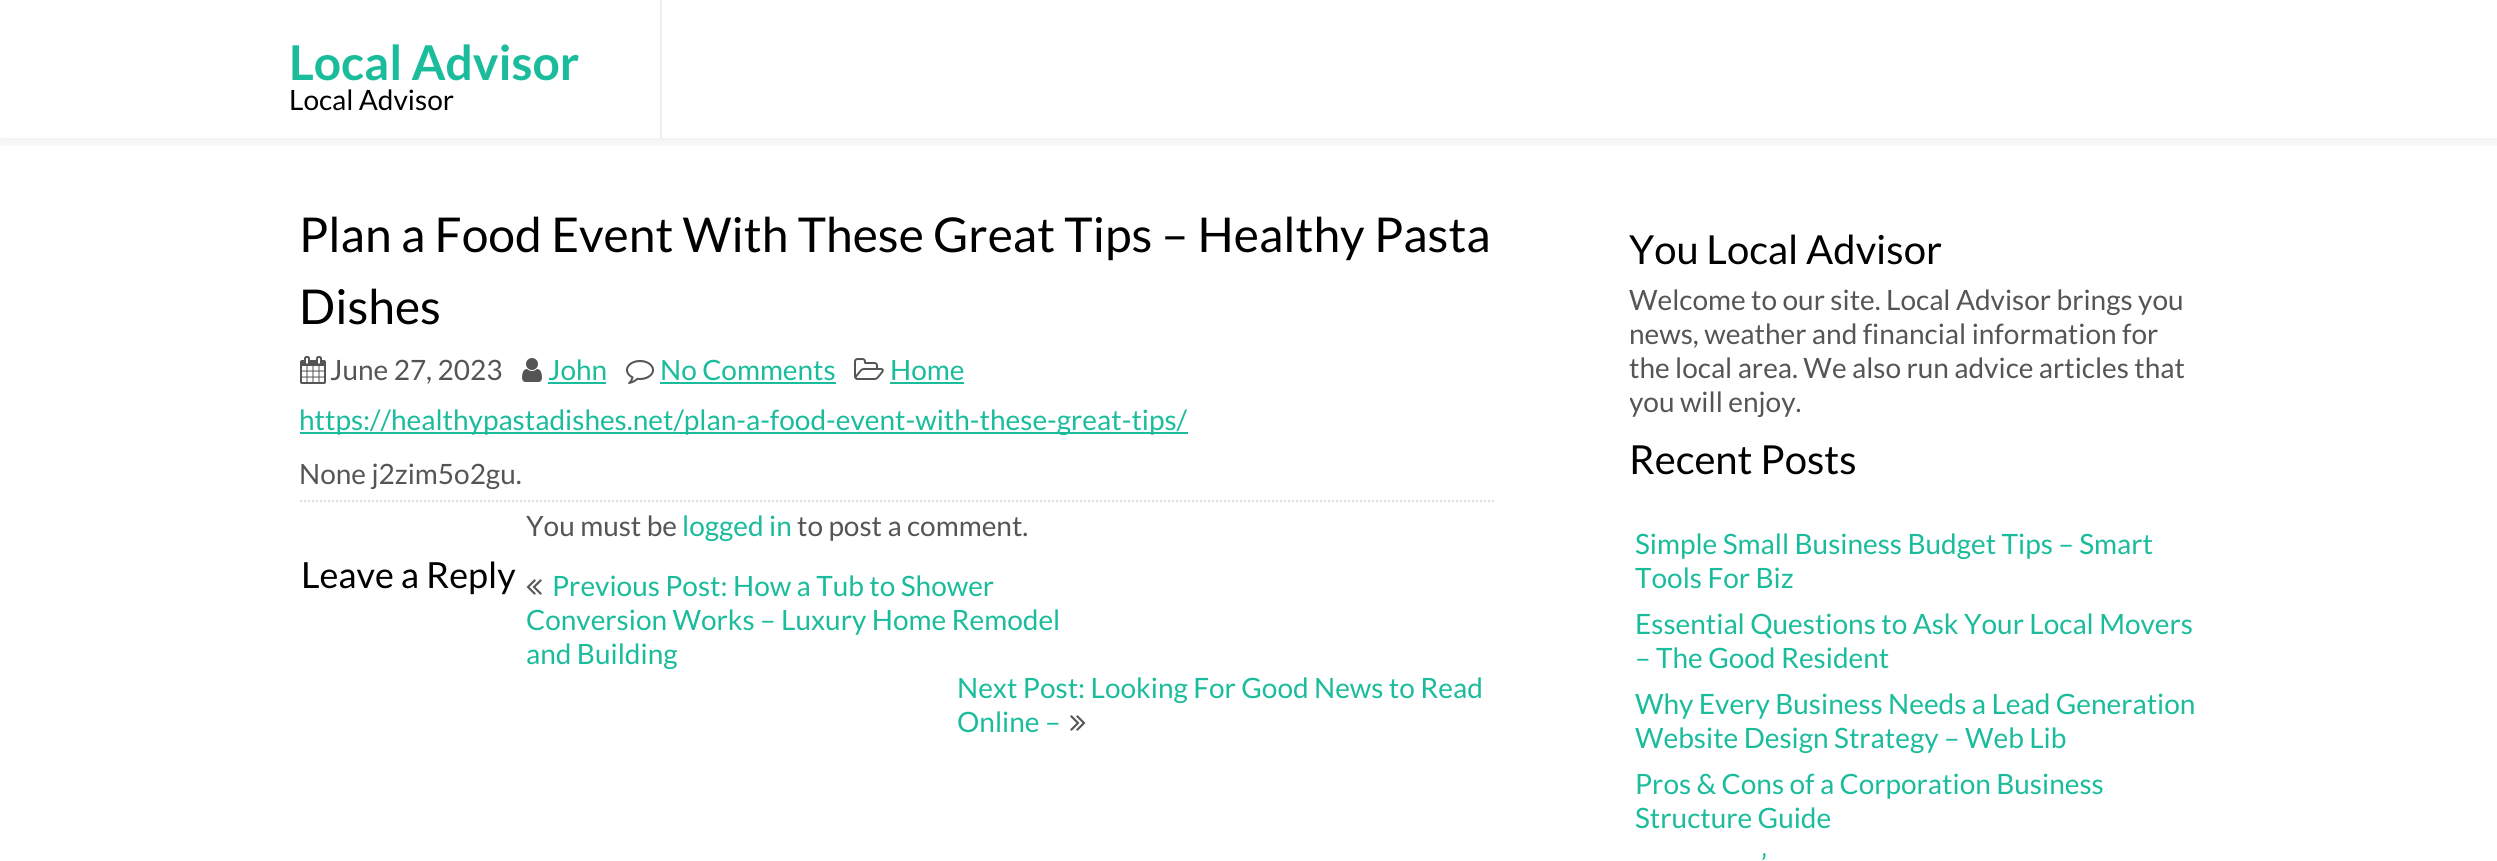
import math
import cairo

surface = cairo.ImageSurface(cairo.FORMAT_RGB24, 2497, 861)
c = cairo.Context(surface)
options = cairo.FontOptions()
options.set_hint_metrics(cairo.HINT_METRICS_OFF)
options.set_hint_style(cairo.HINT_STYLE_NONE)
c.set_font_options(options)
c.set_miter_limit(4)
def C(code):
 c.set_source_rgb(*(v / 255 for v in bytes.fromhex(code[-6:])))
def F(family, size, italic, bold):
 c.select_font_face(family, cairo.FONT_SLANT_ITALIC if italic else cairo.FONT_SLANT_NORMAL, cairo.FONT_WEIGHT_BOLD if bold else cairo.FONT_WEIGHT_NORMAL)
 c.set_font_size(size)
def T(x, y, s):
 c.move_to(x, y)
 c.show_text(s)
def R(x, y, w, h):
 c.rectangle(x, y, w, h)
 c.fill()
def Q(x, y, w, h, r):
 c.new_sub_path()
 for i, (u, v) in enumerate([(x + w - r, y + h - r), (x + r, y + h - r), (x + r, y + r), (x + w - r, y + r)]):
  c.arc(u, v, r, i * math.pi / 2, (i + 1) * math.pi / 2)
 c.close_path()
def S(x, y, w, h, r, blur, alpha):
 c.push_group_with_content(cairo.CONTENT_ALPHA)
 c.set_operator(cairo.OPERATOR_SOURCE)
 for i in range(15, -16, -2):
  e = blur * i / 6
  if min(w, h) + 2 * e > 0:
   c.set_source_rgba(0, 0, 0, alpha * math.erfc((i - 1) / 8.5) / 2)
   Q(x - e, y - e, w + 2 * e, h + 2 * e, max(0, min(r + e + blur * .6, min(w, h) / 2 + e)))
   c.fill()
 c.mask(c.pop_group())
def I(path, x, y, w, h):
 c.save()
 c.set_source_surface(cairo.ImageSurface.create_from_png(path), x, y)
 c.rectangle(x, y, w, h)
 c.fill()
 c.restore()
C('ffffff')
c.paint()
c.save()
c.rectangle(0,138,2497,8)
c.clip()
C('000000')
S(0,0,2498,138,0,10,.1)
c.restore()
C('eeeeee')
R(660,0,2,138)
F('Lato',48,0,1)
C('1abc9c')
T(289,80,'Local Advisor')
F('Lato',28,0,0)
C('000000')
T(289,110,'Local Advisor')
F('Lato',48,0,0)
T(299,252,'Plan a Food Event With These Great Tips – Healthy Pasta')
T(299,324,'Dishes')
I('1.png',300,356,26,28)
F('Lato',28,0,0)
C('555555')
T(330,380,'June 27, 2023')
I('2.png',522,358,20,24)
C('1abc9c')
T(548,380,'John')
R(548,382,58,2)
I('3.png',626,360,28,24)
T(660,380,'No Comments')
R(660,382,176,2)
I('4.png',854,358,30,22)
T(890,380,'Home')
R(890,382,74,2)
R(300,432,888,2)
T(299,430,'https://healthypastadishes.net/plan-a-food-event-with-these-great-tips/')
C('555555')
T(299,484,'None j2zim5o2gu.')
c.new_path()
c.move_to(300,501)
c.line_to(1496,501)
C('dddddd')
c.set_dash([2,2])
c.stroke()
C('555555')
T(526,536,'You must be')
C('1abc9c')
T(682,536,'logged in')
C('555555')
T(797,536,'to post a comment.')
F('Lato',36,0,0)
C('000000')
T(301,588,'Leave a Reply')
I('5.png',526,579,16,16)
F('Lato',28,0,0)
C('1abc9c')
T(552,596,'Previous Post: How a Tub to Shower')
T(526,630,'Conversion Works – Luxury Home Remodel')
T(526,664,'and Building')
T(957,698,'Next Post: Looking For Good News to Read')
T(957,732,'Online –')
I('6.png',1070,715,16,16)
F('Lato',40,0,0)
C('000000')
T(1629,264,'You Local Advisor')
F('Lato',28,0,0)
C('555555')
T(1629,310,'Welcome to our site. Local Advisor brings you')
T(1629,344,'news, weather and financial information for')
T(1629,378,'the local area. We also run advice articles that')
c.save()
c.rectangle(1630,208,570,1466)
c.clip()
T(1629,412,'you will enjoy.')
c.restore()
F('Lato',40,0,0)
C('000000')
T(1629,474,'Recent Posts')
F('Lato',28,0,0)
C('1abc9c')
T(1635,554,'Simple Small Business Budget Tips – Smart')
T(1635,588,'Tools For Biz')
T(1635,634,'Essential Questions to Ask Your Local Movers')
T(1635,668,'– The Good Resident')
T(1635,714,'Why Every Business Needs a Lead Generation')
T(1635,748,'Website Design Strategy – Web Lib')
T(1635,794,'Pros & Cons of a Corporation Business')
T(1635,828,'Structure Guide')
T(1761,874,'’')
surface.write_to_png('o.png')
